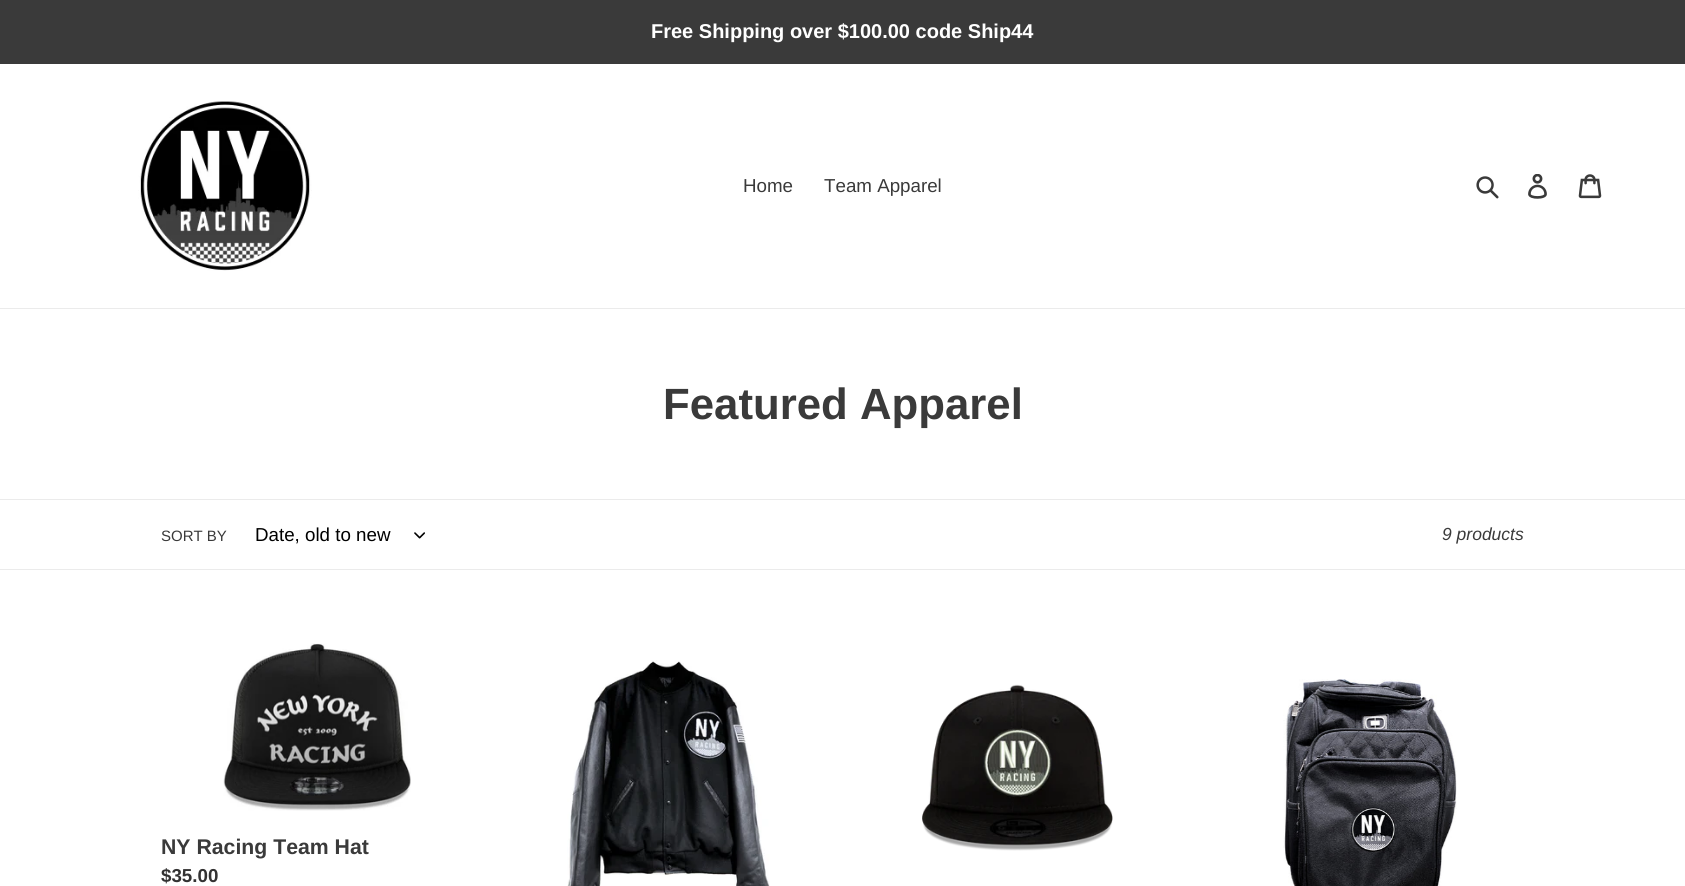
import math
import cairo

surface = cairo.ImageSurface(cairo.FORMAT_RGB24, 1685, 886)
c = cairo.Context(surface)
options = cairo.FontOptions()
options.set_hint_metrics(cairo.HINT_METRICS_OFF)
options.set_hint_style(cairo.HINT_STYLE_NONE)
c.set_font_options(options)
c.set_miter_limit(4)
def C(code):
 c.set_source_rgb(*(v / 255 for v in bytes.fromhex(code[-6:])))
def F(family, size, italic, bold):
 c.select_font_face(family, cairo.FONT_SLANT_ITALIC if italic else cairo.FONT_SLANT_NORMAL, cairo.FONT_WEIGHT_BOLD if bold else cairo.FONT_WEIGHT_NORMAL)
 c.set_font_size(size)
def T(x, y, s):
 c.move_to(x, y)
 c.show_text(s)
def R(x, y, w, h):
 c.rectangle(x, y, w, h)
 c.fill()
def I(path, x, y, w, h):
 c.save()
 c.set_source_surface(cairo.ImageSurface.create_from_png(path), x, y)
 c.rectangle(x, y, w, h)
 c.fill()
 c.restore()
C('ffffff')
c.paint()
C('3a3a3a')
R(0,0,1685,64)
F('Liberation Sans',20,0,1)
C('ffffff')
T(651,38,'Free Shipping over $100.00 code Ship44')
C('ebebeb')
R(0,308,1685,1)
I('1.png',138,101,174,170)
F('Liberation Sans',18.75,0,0)
C('3a3a3a')
T(743,192,'Home')
T(824,192,'Team Apparel')
I('2.png',1476,176,23,23)
I('3.png',1528,174,19,25)
I('4.png',1578,174,24,25)
F('Liberation Sans',43.75,0,1)
T(663,419,'Featured Apparel')
C('ebebeb')
R(0,499,1685,1)
R(0,569,1685,1)
F('Liberation Sans',15,0,0)
C('3a3a3a')
T(161,541,'SORT BY')
F('Liberation Sans',18.75,0,0)
C('000000')
T(255,541,'Date, old to new')
I('5.png',414,532,11,7)
F('Liberation Sans',17.5,1,0)
C('3a3a3a')
T(1442,540,'9 products')
I('6.png',567,660,203,226)
I('7.png',922,684,191,167)
I('8.png',1283,679,174,207)
I('9.png',223,643,188,168)
F('Liberation Sans',21.25,0,1)
T(161,854,'NY Racing Team Hat')
F('Liberation Sans',18.75,0,1)
C('333232')
T(161,882,'$35.00')
surface.write_to_png('o.png')
